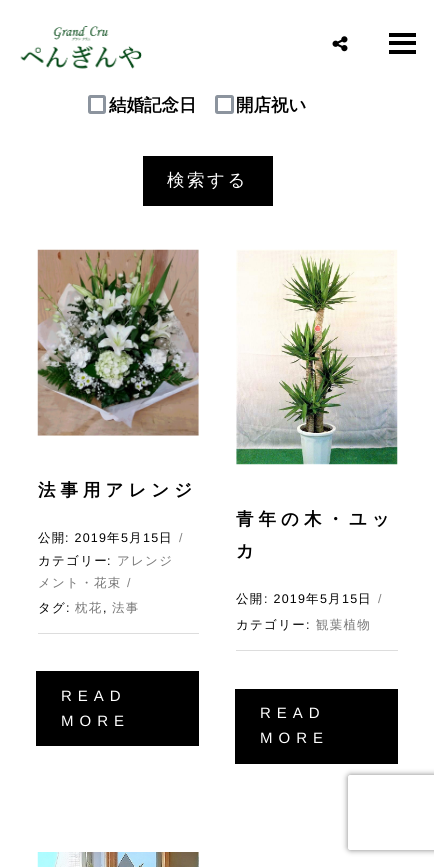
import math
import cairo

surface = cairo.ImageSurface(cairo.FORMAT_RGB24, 434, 867)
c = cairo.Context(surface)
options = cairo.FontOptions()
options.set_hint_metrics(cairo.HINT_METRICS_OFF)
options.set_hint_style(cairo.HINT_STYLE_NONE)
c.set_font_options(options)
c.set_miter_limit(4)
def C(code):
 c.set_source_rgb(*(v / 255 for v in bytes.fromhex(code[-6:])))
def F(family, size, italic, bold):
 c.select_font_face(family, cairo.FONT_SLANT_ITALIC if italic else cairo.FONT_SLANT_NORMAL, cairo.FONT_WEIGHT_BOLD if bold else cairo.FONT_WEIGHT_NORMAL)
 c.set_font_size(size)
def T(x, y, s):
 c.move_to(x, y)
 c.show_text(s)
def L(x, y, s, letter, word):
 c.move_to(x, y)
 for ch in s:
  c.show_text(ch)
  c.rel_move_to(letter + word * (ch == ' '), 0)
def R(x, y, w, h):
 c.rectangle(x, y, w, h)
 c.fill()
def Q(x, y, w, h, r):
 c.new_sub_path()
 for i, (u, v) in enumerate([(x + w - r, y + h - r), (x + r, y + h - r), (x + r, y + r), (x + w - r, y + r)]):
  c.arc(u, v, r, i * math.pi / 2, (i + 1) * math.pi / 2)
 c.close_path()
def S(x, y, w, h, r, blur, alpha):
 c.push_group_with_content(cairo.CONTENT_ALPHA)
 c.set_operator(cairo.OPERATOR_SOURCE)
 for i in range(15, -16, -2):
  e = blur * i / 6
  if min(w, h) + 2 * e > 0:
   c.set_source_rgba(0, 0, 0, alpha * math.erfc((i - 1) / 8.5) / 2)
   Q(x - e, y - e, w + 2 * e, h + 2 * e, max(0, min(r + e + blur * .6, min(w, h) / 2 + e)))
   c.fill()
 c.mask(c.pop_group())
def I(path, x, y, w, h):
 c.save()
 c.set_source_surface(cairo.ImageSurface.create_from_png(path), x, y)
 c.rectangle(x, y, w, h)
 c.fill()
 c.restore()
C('ffffff')
c.paint()
I('1.png',20,26,122,43)
I('2.png',332,36,16,16)
C('000000')
R(389,33,27,4)
R(389,41,27,4)
R(389,50,27,4)
Q(89.5,96.5,15,16,1)
C('8c949e')
c.set_line_width(3)
c.stroke()
F('WenQuanYi Zen Hei',17.5,0,1)
C('000000')
T(109,111,'結婚記念日')
Q(216.5,96.5,16,16,1)
C('8c949e')
c.stroke()
C('000000')
T(236,111,'開店祝い')
R(143,156,130,50)
F('WenQuanYi Zen Hei Medium',17.5,0,0)
C('ffffff')
L(167,186,'検索する',2.5,0)
I('3.png',37,249,162,187)
F('WenQuanYi Zen Hei',17.5,0,1)
C('000000')
L(38,496,'法事用アレンジ',5,0)
C('dddddd')
R(38,633,161,1)
F('WenQuanYi Zen Hei Medium',12.5,0,0)
C('000000')
L(38,542,'公開',1.25,0)
F('Liberation Sans',12.5,0,0)
L(65,542,': 2019',1.25,0)
F('WenQuanYi Zen Hei Medium',12.5,0,0)
L(107,542,'年',1.25,0)
F('Liberation Sans',12.5,0,0)
L(121,542,'5',1.25,0)
F('WenQuanYi Zen Hei Medium',12.5,0,0)
L(129,542,'月',1.25,0)
F('Liberation Sans',12.5,0,0)
L(143,542,'15',1.25,0)
F('WenQuanYi Zen Hei Medium',12.5,0,0)
L(159,542,'日',1.25,0)
F('Liberation Sans',12.5,0,0)
C('808080')
L(179,542,'/',1.25,0)
F('WenQuanYi Zen Hei Medium',12.5,0,0)
C('000000')
L(38,565,'カテゴリー',1.25,0)
F('Liberation Sans',12.5,0,0)
L(107,565,':',1.25,0)
F('WenQuanYi Zen Hei Medium',12.5,0,0)
C('767676')
L(117,565,'アレンジ',1.25,0)
L(38,587,'メント・花束',1.25,0)
F('Liberation Sans',12.5,0,0)
C('808080')
L(127,587,'/',1.25,0)
F('WenQuanYi Zen Hei Medium',12.5,0,0)
C('000000')
L(38,612,'タグ',1.25,0)
F('Liberation Sans',12.5,0,0)
L(66,612,':',1.25,0)
F('WenQuanYi Zen Hei Medium',12.5,0,0)
C('767676')
L(75,612,'枕花',1.25,0)
F('Liberation Sans',12.5,0,0)
C('000000')
L(103,612,',',1.25,0)
F('WenQuanYi Zen Hei Medium',12.5,0,0)
C('767676')
L(112,612,'法事',1.25,0)
C('000000')
R(36,671,163,75)
F('Liberation Sans',15,0,0)
C('ffffff')
L(61,701,'READ',6,0)
L(61,726,'MORE',6,0)
I('4.png',236,249,162,216)
F('WenQuanYi Zen Hei',17.5,0,1)
C('000000')
L(236,525,'青年の木・ユッ',5,0)
L(236,557,'カ',5,0)
C('dddddd')
R(236,650,162,1)
F('WenQuanYi Zen Hei Medium',12.5,0,0)
C('000000')
L(236,603,'公開',1.25,0)
F('Liberation Sans',12.5,0,0)
L(264,603,': 2019',1.25,0)
F('WenQuanYi Zen Hei Medium',12.5,0,0)
L(306,603,'年',1.25,0)
F('Liberation Sans',12.5,0,0)
L(320,603,'5',1.25,0)
F('WenQuanYi Zen Hei Medium',12.5,0,0)
L(328,603,'月',1.25,0)
F('Liberation Sans',12.5,0,0)
L(342,603,'15',1.25,0)
F('WenQuanYi Zen Hei Medium',12.5,0,0)
L(358,603,'日',1.25,0)
F('Liberation Sans',12.5,0,0)
C('808080')
L(378,603,'/',1.25,0)
F('WenQuanYi Zen Hei Medium',12.5,0,0)
C('000000')
L(236,629,'カテゴリー',1.25,0)
F('Liberation Sans',12.5,0,0)
L(306,629,':',1.25,0)
F('WenQuanYi Zen Hei Medium',12.5,0,0)
C('767676')
L(316,629,'観葉植物',1.25,0)
C('000000')
R(235,689,163,75)
F('Liberation Sans',15,0,0)
C('ffffff')
L(260,718,'READ',6,0)
L(260,743,'MORE',6,0)
I('5.png',37,852,162,15)
c.save()
c.set_fill_rule(cairo.FILL_RULE_EVEN_ODD)
c.new_path()
c.move_to(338,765)
c.line_to(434,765)
c.line_to(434,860)
c.line_to(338,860)
c.close_path()
c.move_to(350.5,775)
c.line_to(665.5,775)
c.curve_to(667,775,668,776,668,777.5)
c.line_to(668,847.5)
c.curve_to(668,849,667,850,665.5,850)
c.line_to(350.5,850)
c.curve_to(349,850,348,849,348,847.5)
c.line_to(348,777.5)
c.curve_to(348,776,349,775,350.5,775)
c.close_path()
c.clip()
C('808080')
S(348,775,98,75,2.5,3,1)
c.restore()
surface.write_to_png('o.png')
